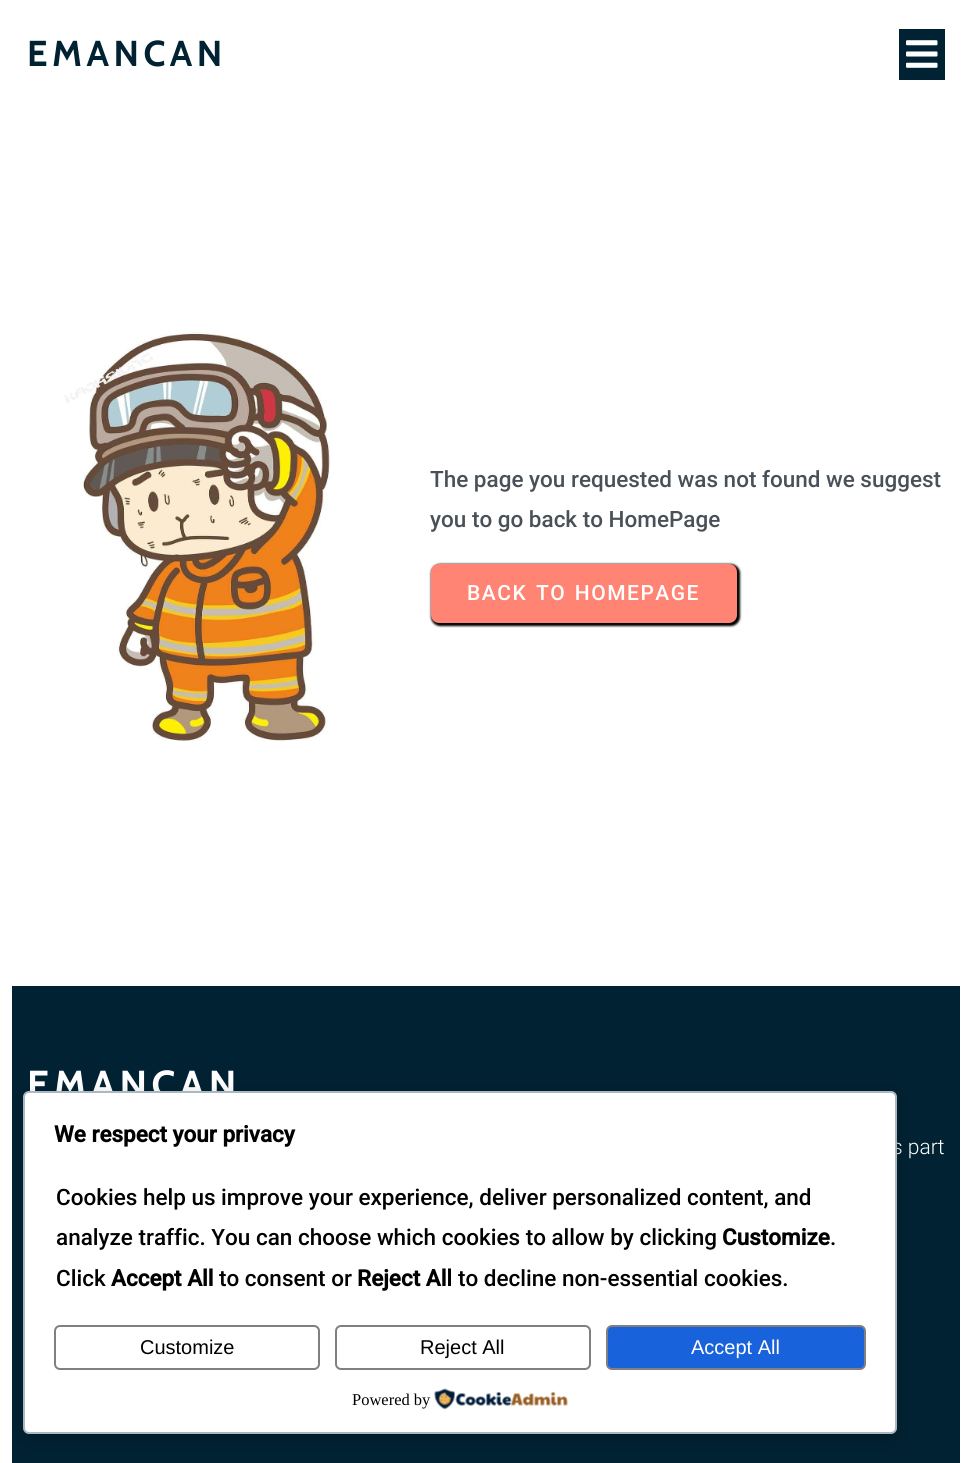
import math
import cairo

surface = cairo.ImageSurface(cairo.FORMAT_RGB24, 971, 1463)
c = cairo.Context(surface)
options = cairo.FontOptions()
options.set_hint_metrics(cairo.HINT_METRICS_OFF)
options.set_hint_style(cairo.HINT_STYLE_NONE)
c.set_font_options(options)
c.set_miter_limit(4)
def C(code):
 c.set_source_rgb(*(v / 255 for v in bytes.fromhex(code[-6:])))
def F(family, size, italic, bold):
 c.select_font_face(family, cairo.FONT_SLANT_ITALIC if italic else cairo.FONT_SLANT_NORMAL, cairo.FONT_WEIGHT_BOLD if bold else cairo.FONT_WEIGHT_NORMAL)
 c.set_font_size(size)
def T(x, y, s):
 c.move_to(x, y)
 c.show_text(s)
def L(x, y, s, letter, word):
 c.move_to(x, y)
 for ch in s:
  c.show_text(ch)
  c.rel_move_to(letter + word * (ch == ' '), 0)
def R(x, y, w, h):
 c.rectangle(x, y, w, h)
 c.fill()
def Q(x, y, w, h, r):
 c.new_sub_path()
 for i, (u, v) in enumerate([(x + w - r, y + h - r), (x + r, y + h - r), (x + r, y + r), (x + w - r, y + r)]):
  c.arc(u, v, r, i * math.pi / 2, (i + 1) * math.pi / 2)
 c.close_path()
def S(x, y, w, h, r, blur, alpha):
 c.push_group_with_content(cairo.CONTENT_ALPHA)
 c.set_operator(cairo.OPERATOR_SOURCE)
 for i in range(15, -16, -2):
  e = blur * i / 6
  if min(w, h) + 2 * e > 0:
   c.set_source_rgba(0, 0, 0, alpha * math.erfc((i - 1) / 8.5) / 2)
   Q(x - e, y - e, w + 2 * e, h + 2 * e, max(0, min(r + e + blur * .6, min(w, h) / 2 + e)))
   c.fill()
 c.mask(c.pop_group())
def I(path, x, y, w, h):
 c.save()
 c.set_source_surface(cairo.ImageSurface.create_from_png(path), x, y)
 c.rectangle(x, y, w, h)
 c.fill()
 c.restore()
C('ffffff')
c.paint()
F('Cabin',36,0,1)
C('012233')
L(27,66,'EMANCAN',4.5,0)
R(899,29,46,51)
I('1.png',906,40,32,28)
I('2.png',64,332,267,409)
F('Roboto Medium',22.5,0,0)
C('495057')
T(430,487,'The page you requested was not found we suggest')
T(430,527,'you to go back to HomePage')
C('000000')
S(431,564,309,62,9,1,1)
C('ff8474')
Q(431,564,306,59,8)
c.fill()
F('Roboto Medium',21,0,0)
C('ffffff')
L(467,600,'BACK TO HOMEPAGE',1.5,2)
C('012233')
R(12,986,948,477)
F('Cabin',39,0,1)
C('ffffff')
L(27,1098,'EMANCAN',4.5,0)
F('Roboto Light',21,0,0)
T(892,1154,'s part')
C('000000')
S(24,1095,875,344,6,7.5,.2)
C('ffffff')
Q(24,1092,872,341,5)
c.fill_preserve()
C('abb8c3')
c.stroke()
F('Roboto',22.5,0,1)
C('000000')
T(54,1142,'We respect your privacy')
F('Roboto Medium',22.5,0,0)
T(56,1205,'Cookies help us improve your experience, deliver personalized content, and')
T(56,1245,'analyze traffic. You can choose which cookies to allow by clicking')
F('Roboto',22.5,0,1)
T(722,1245,'Customize')
F('Roboto Medium',22.5,0,0)
T(830,1245,'.')
T(56,1286,'Click')
F('Roboto',22.5,0,1)
T(111,1286,'Accept All')
F('Roboto Medium',22.5,0,0)
T(219,1286,'to consent or')
F('Roboto',22.5,0,1)
T(357,1286,'Reject All')
F('Roboto Medium',22.5,0,0)
T(458,1286,'to decline non-essential cookies.')
Q(55,1326,264,43,5)
C('808080')
c.stroke()
F('Liberation Sans',20,0,0)
C('000000')
T(140,1354,'Customize')
Q(336,1326,254,43,5)
C('808080')
c.stroke()
C('000000')
T(420,1354,'Reject All')
C('1863dc')
Q(607,1326,258,43,5)
c.fill_preserve()
C('808080')
c.stroke()
C('ffffff')
T(691,1354,'Accept All')
F('Liberation Serif',16.5,0,0)
C('000000')
T(352,1405,'Powered by')
I('3.png',434,1388,134,22)
surface.write_to_png('o.png')
